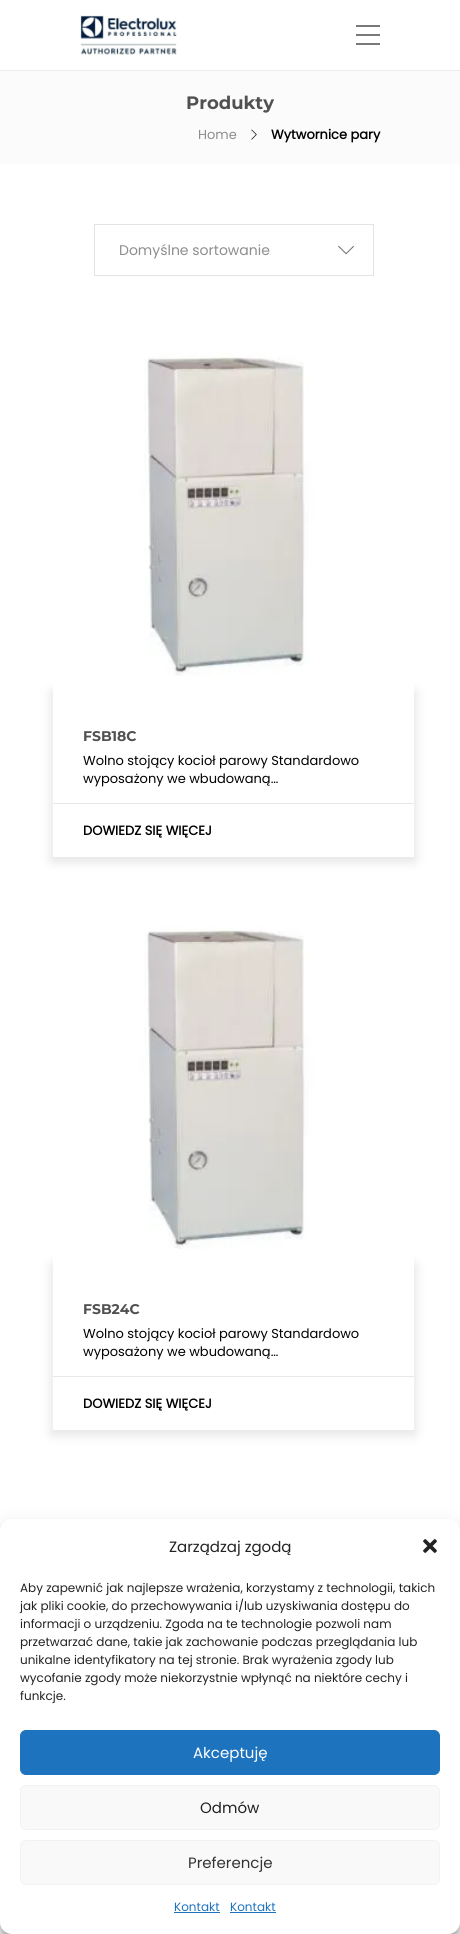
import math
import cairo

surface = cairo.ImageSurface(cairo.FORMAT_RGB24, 460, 1934)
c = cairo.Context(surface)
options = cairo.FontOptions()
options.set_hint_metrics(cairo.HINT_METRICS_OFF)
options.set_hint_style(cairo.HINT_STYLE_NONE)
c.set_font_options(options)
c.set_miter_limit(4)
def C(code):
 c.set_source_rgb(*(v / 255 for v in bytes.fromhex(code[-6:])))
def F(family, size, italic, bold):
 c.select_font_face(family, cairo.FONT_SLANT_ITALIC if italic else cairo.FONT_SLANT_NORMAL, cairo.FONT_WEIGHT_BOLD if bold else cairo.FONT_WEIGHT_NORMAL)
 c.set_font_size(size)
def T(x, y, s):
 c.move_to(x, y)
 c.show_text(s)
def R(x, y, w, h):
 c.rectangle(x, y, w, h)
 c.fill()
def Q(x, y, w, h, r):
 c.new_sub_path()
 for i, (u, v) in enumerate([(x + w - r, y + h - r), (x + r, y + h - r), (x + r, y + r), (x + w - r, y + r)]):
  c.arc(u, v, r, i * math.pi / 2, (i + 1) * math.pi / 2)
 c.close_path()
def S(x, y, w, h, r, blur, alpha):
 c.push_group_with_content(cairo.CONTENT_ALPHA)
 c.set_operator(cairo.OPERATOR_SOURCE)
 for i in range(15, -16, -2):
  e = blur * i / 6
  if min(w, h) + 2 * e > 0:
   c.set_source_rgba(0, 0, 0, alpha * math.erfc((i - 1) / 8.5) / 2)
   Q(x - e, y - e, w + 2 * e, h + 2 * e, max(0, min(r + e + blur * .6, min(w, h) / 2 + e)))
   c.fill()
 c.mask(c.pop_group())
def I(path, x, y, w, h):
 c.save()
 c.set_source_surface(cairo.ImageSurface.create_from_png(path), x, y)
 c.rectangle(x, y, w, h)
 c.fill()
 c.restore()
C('ffffff')
c.paint()
C('ebebeb')
R(0,70,460,1)
I('1.png',80,15,97,40)
C('797979')
R(356,34,24,2)
R(356,25,24,2)
R(356,43,24,2)
C('fbfbfb')
R(0,71,460,93)
F('Montserrat',18,0,1)
C('505050')
T(186,109,'Produkty')
F('Poppins',13,0,0)
C('8d8d8d')
T(198,139,'Home')
I('2.png',251,129,6,11)
F('Poppins',13,0,1)
C('000000')
T(271,139,'Wytwornice pary')
c.rectangle(94.5,224.5,279,51)
C('e3e3e3')
c.set_line_width(1)
c.stroke()
F('Poppins',14,0,0)
C('8d8d8d')
T(119,255,'Domyślne sortowanie')
I('3.png',338,245,16,10)
c.save()
c.set_fill_rule(cairo.FILL_RULE_EVEN_ODD)
c.new_path()
c.move_to(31,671)
c.line_to(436,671)
c.line_to(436,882)
c.line_to(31,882)
c.close_path()
c.move_to(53,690)
c.line_to(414,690)
c.line_to(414,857)
c.line_to(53,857)
c.close_path()
c.clip()
C('000000')
S(52,692,363,169,0,6.5,.12)
c.restore()
I('4.png',53,353,361,337)
C('e9e9e9')
R(53,803,361,1)
F('Montserrat',14,0,1)
C('505050')
T(83,741,'FSB18C')
F('Poppins',13,0,0)
C('000000')
T(83,765,'Wolno stojący kocioł parowy Standardowo')
T(83,783,'wyposażony we wbudowaną…')
F('Poppins',13,0,1)
T(83,835,'DOWIEDZ SIĘ WIĘCEJ')
c.save()
c.set_fill_rule(cairo.FILL_RULE_EVEN_ODD)
c.new_path()
c.move_to(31,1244)
c.line_to(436,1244)
c.line_to(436,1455)
c.line_to(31,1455)
c.close_path()
c.move_to(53,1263)
c.line_to(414,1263)
c.line_to(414,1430)
c.line_to(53,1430)
c.close_path()
c.clip()
C('000000')
S(52,1265,363,169,0,6.5,.12)
c.restore()
I('5.png',53,926,361,337)
C('e9e9e9')
R(53,1376,361,1)
F('Montserrat',14,0,1)
C('505050')
T(83,1314,'FSB24C')
F('Poppins',13,0,0)
C('000000')
T(83,1338,'Wolno stojący kocioł parowy Standardowo')
T(83,1356,'wyposażony we wbudowaną…')
F('Poppins',13,0,1)
T(83,1408,'DOWIEDZ SIĘ WIĘCEJ')
C('000000')
S(0,1525,460,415,12,3,.23)
S(0,1529,460,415,12,10,.19)
C('808080')
S(390,1860,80,60,2,2.5,1)
C('ffffff')
Q(0,1519,460,415,12)
c.fill()
F('Poppins',15,0,0)
C('222222')
T(169,1552,'Zarządzaj zgodą')
I('6.png',423,1539,14,14)
F('Poppins',12,0,0)
T(20,1592,'Aby zapewnić jak najlepsze wrażenia, korzystamy z technologii, takich')
T(20,1610,'jak pliki cookie, do przechowywania i/lub uzyskiwania dostępu do')
T(20,1628,'informacji o urządzeniu. Zgoda na te technologie pozwoli nam')
T(20,1646,'przetwarzać dane, takie jak zachowanie podczas przeglądania lub')
T(20,1664,'unikalne identyfikatory na tej stronie. Brak wyrażenia zgody lub')
T(20,1682,'wycofanie zgody może niekorzystnie wpłynąć na niektóre cechy i')
T(20,1700,'funkcje.')
C('1e73be')
Q(20.5,1730.5,419,44,5.5)
c.fill_preserve()
c.stroke()
F('Poppins',15,0,0)
C('ffffff')
T(193,1758,'Akceptuję')
C('f9f9f9')
Q(20.5,1785.5,419,44,5.5)
c.fill_preserve()
C('f2f2f2')
c.stroke()
C('222222')
T(200,1813,'Odmów')
C('f9f9f9')
Q(20.5,1840.5,419,44,5.5)
c.fill_preserve()
C('f2f2f2')
c.stroke()
C('333333')
T(188,1868,'Preferencje')
F('Poppins',12,0,0)
C('1e73be')
T(174,1911,'Kontakt')
R(174,1912,46,1)
T(230,1911,'Kontakt')
R(230,1912,46,1)
surface.write_to_png('o.png')
